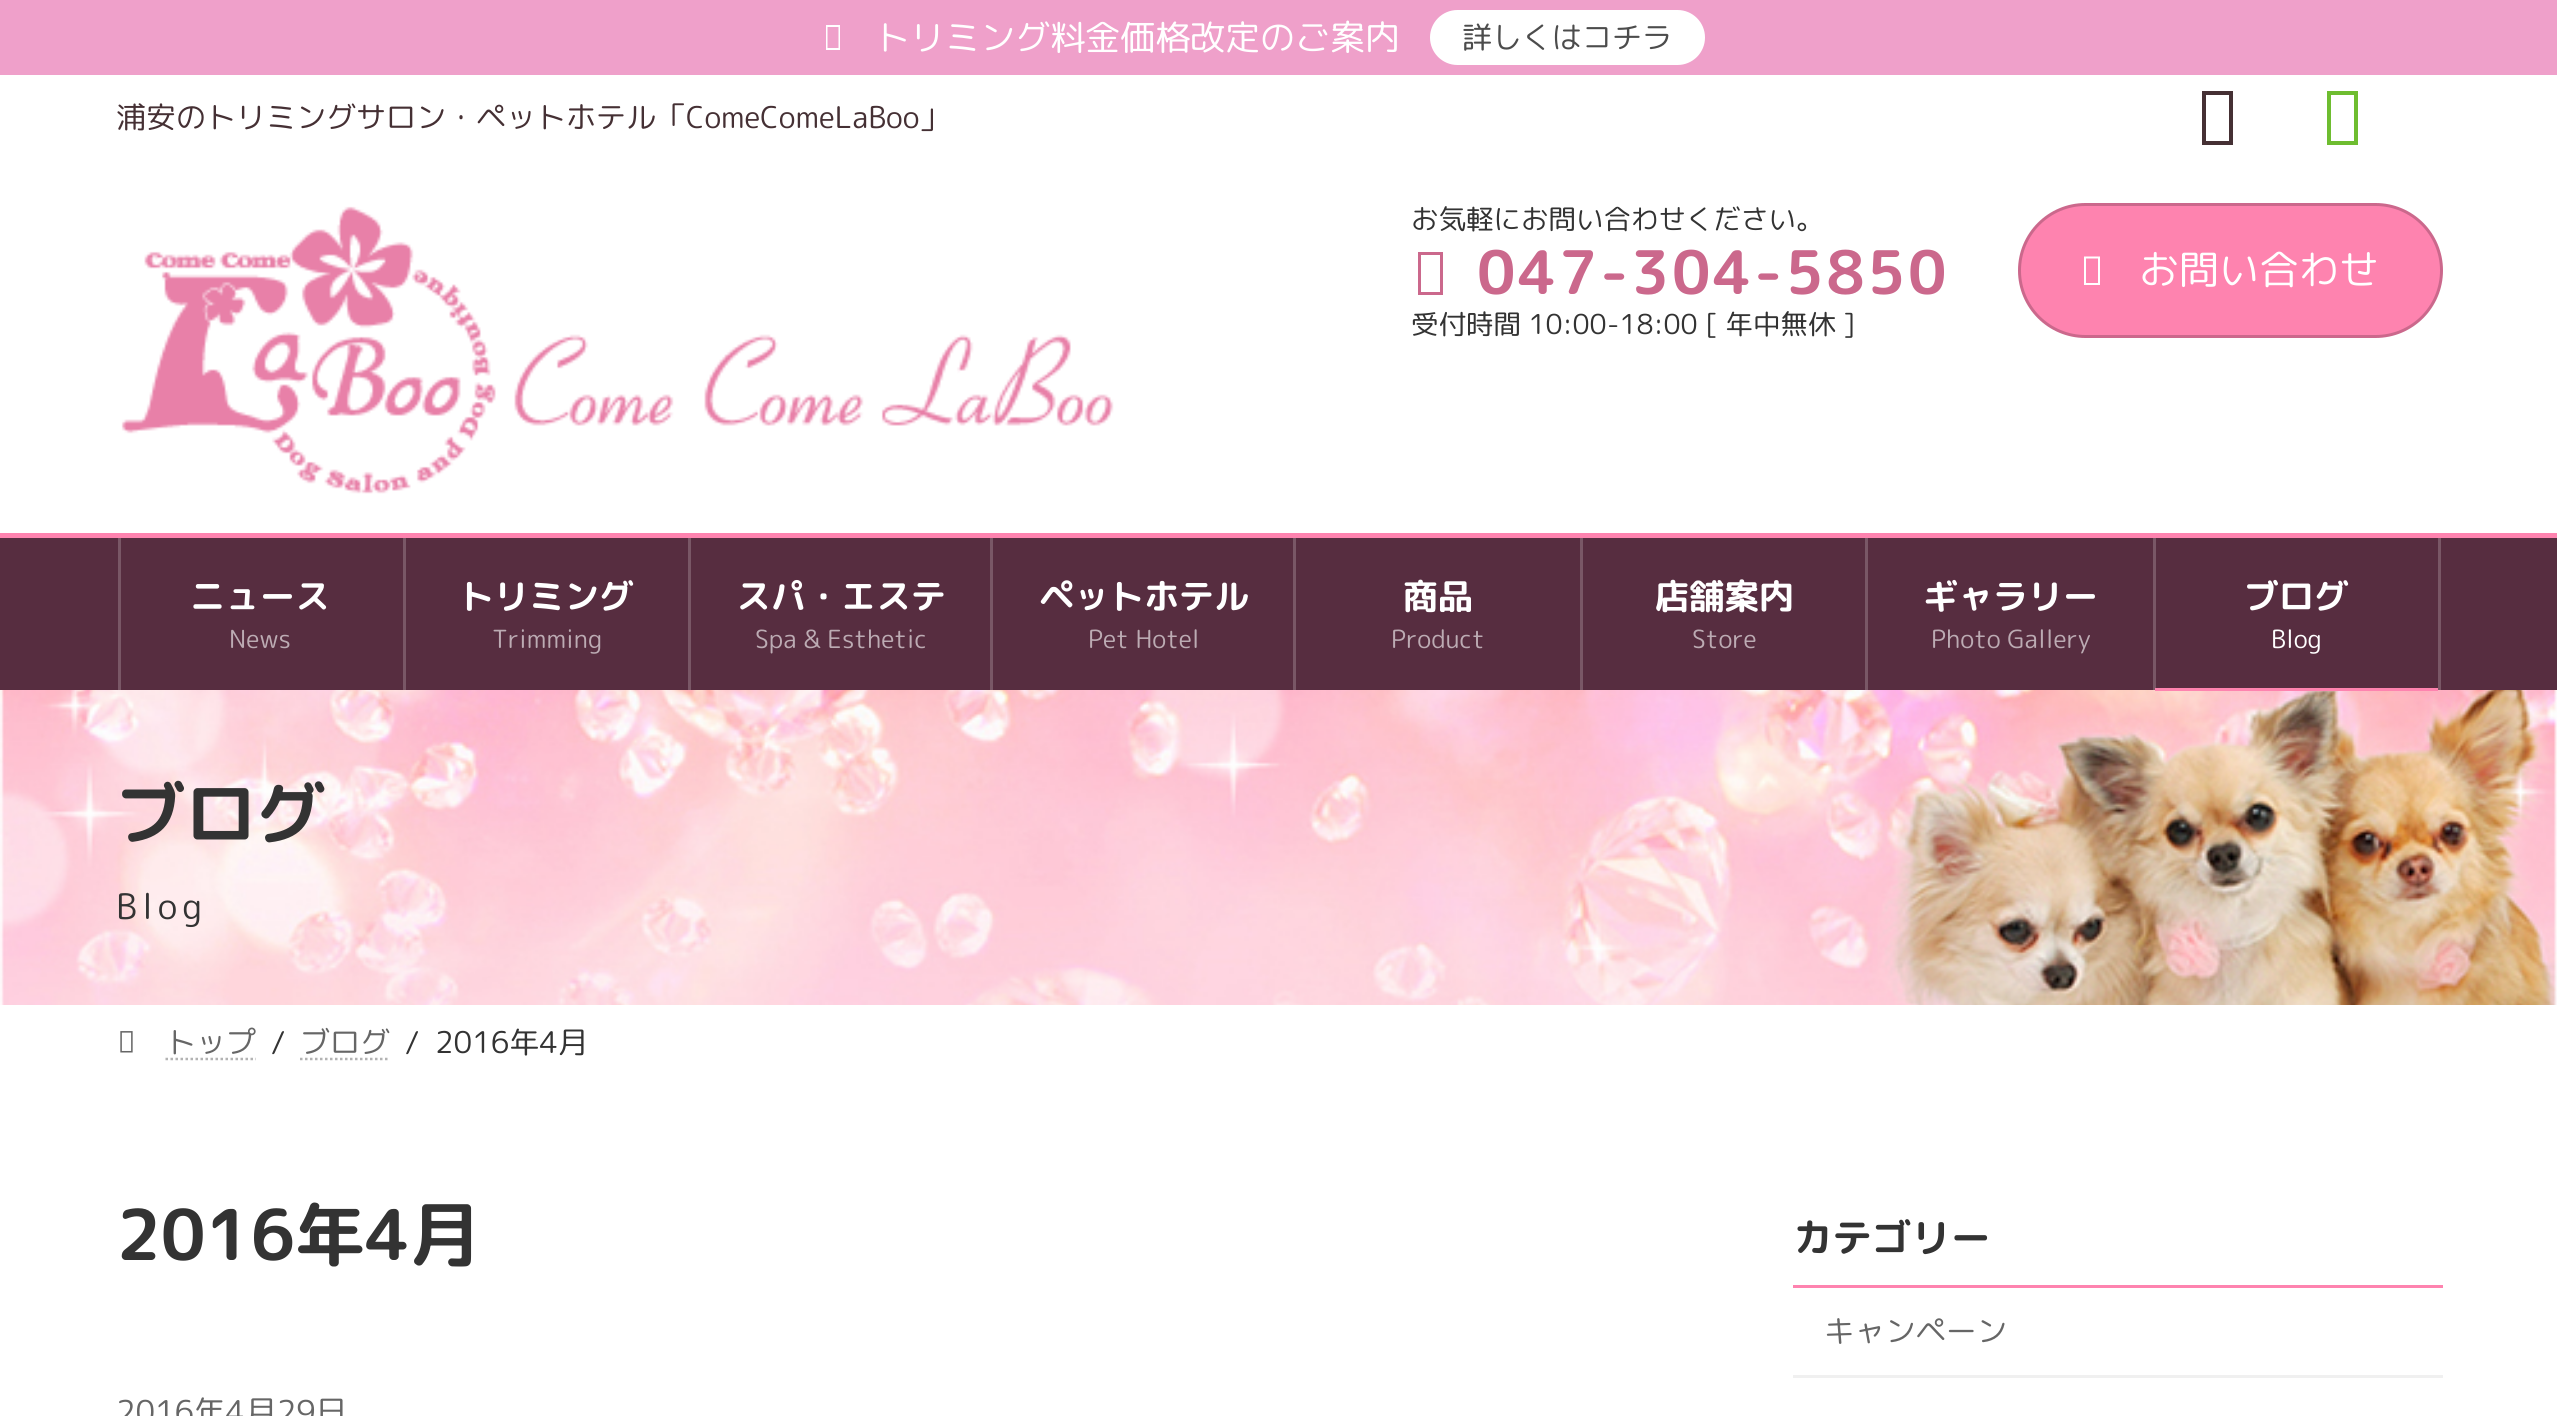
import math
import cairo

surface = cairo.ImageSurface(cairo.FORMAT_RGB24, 2557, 1416)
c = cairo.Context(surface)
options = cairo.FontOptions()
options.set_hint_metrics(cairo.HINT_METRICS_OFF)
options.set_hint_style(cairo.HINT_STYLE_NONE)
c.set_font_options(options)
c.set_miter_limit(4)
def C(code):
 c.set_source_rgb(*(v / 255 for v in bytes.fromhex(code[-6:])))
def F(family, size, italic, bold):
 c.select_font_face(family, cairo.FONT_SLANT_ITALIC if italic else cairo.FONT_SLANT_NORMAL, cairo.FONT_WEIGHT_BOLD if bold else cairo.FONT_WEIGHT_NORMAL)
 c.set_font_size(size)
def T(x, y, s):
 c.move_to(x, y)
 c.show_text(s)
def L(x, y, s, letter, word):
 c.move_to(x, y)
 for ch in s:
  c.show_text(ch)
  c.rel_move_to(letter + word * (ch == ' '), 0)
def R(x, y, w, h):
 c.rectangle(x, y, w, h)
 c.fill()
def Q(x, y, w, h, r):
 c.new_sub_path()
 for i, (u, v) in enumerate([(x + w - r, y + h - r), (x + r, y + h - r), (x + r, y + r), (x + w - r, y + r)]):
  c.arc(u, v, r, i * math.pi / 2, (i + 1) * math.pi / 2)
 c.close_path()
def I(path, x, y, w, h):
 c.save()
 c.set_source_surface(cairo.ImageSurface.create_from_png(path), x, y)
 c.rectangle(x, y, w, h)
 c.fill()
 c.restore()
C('ffffff')
c.paint()
C('efa0ca')
R(0,0,2557,75)
C('ffffff')
c.new_path()
c.move_to(826,50)
c.line_to(826,25)
c.line_to(840,25)
c.line_to(840,50)
c.close_path()
c.move_to(827.5,48)
c.line_to(838.5,48)
c.line_to(838.5,27)
c.line_to(827.5,27)
c.close_path()
c.fill()
F('Rounded Mplus 1c',35,0,0)
T(875,50,'トリミング料金価格改定のご案内')
Q(1431.5,11.5,272,52,26)
c.fill_preserve()
c.set_line_width(3)
c.stroke()
F('Rounded Mplus 1c',30,0,0)
C('4c4c4c')
T(1462,48,'詳しくはコチラ')
C('453034')
T(116,128,'浦安のトリミングサロン・ペットホテル「ComeComeLaBoo」')
c.new_path()
c.move_to(2202,145)
c.line_to(2202,91)
c.line_to(2233,91)
c.line_to(2233,145)
c.close_path()
c.move_to(2206,141)
c.line_to(2229,141)
c.line_to(2229,95)
c.line_to(2206,95)
c.close_path()
c.fill()
C('6ebd30')
c.new_path()
c.move_to(2327,145)
c.line_to(2327,91)
c.line_to(2358,91)
c.line_to(2358,145)
c.close_path()
c.move_to(2331,141)
c.line_to(2354,141)
c.line_to(2354,95)
c.line_to(2331,95)
c.close_path()
c.fill()
I('1.png',121,206,993,288)
F('Rounded Mplus 1c',27.5,0,0)
C('333333')
T(1411,229,'お気軽にお問い合わせください。')
C('cb688c')
c.new_path()
c.move_to(1418,295)
c.line_to(1418,252)
c.line_to(1443,252)
c.line_to(1443,295)
c.close_path()
c.move_to(1421,292)
c.line_to(1440,292)
c.line_to(1440,255)
c.line_to(1421,255)
c.close_path()
c.fill()
F('Rounded Mplus 1c Bold',60,0,1)
L(1477,294,'047-304-5850',2.5,0)
F('Rounded Mplus 1c',27.5,0,0)
C('333333')
T(1411,334,'受付時間 10:00-18:00 [ 年中無休 ]')
C('fe83af')
Q(2019.5,204.5,422,132,66)
c.fill_preserve()
C('cb688c')
c.stroke()
C('ffffff')
c.new_path()
c.move_to(2084,285)
c.line_to(2084,256.5)
c.line_to(2100,256.5)
c.line_to(2100,285)
c.close_path()
c.move_to(2086,283)
c.line_to(2098,283)
c.line_to(2098,258.5)
c.line_to(2086,258.5)
c.close_path()
c.fill()
F('Rounded Mplus 1c',40,0,0)
T(2139,284,'お問い合わせ')
C('572d40')
R(0,538,2557,152)
C('fe83af')
R(0,533,2557,5)
C('795766')
R(403,538,3,152)
R(118,538,3,152)
F('Rounded Mplus 1c Bold',35,0,1)
C('ffffff')
T(190,609,'ニュース')
F('Rounded Mplus 1c',25,0,0)
C('bcabb3')
T(229,648,'News')
C('795766')
R(688,538,3,152)
F('Rounded Mplus 1c Bold',35,0,1)
C('ffffff')
T(459,609,'トリミング')
F('Rounded Mplus 1c',25,0,0)
C('bcabb3')
T(492,648,'Trimming')
C('795766')
R(990,538,3,152)
F('Rounded Mplus 1c Bold',35,0,1)
C('ffffff')
T(736,609,'スパ・エステ')
F('Rounded Mplus 1c',25,0,0)
C('bcabb3')
T(755,648,'Spa & Esthetic')
C('795766')
R(1293,538,3,152)
F('Rounded Mplus 1c Bold',35,0,1)
C('ffffff')
T(1039,609,'ペットホテル')
F('Rounded Mplus 1c',25,0,0)
C('bcabb3')
T(1088,648,'Pet Hotel')
C('795766')
R(1580,538,3,152)
F('Rounded Mplus 1c Bold',35,0,1)
C('ffffff')
T(1403,609,'商品')
F('Rounded Mplus 1c',25,0,0)
C('bcabb3')
T(1391,648,'Product')
C('795766')
R(1865,538,3,152)
F('Rounded Mplus 1c Bold',35,0,1)
C('ffffff')
T(1654,609,'店舗案内')
F('Rounded Mplus 1c',25,0,0)
C('bcabb3')
T(1692,648,'Store')
C('795766')
R(2153,538,3,152)
F('Rounded Mplus 1c Bold',35,0,1)
C('ffffff')
T(1923,609,'ギャラリー')
F('Rounded Mplus 1c',25,0,0)
C('bcabb3')
T(1931,648,'Photo Gallery')
C('795766')
R(2438,538,3,152)
F('Rounded Mplus 1c Bold',35,0,1)
C('ffffff')
T(2244,609,'ブログ')
F('Rounded Mplus 1c',25,0,0)
T(2271,648,'Blog')
I('2.png',0,690,2557,315)
C('fe83af')
R(2155,688,283,3)
F('Rounded Mplus 1c Bold',70,0,1)
C('333333')
T(116,839,'ブログ')
F('Rounded Mplus 1c',35,0,0)
L(116,919,'Blog',5,0)
I('3.png',120,1031,13,22)
F('Rounded Mplus 1c',30,0,0)
C('666666')
T(166,1053,'トップ')
c.new_path()
c.move_to(165.5,1059)
c.line_to(256,1059)
C('b3b3b3')
c.set_line_width(2.5)
c.set_dash([2.5,2.5])
c.stroke()
C('333333')
T(271,1053,'/')
C('666666')
T(300,1053,'ブログ')
c.new_path()
c.move_to(300,1059)
c.line_to(390,1059)
C('b3b3b3')
c.stroke()
C('333333')
T(405,1053,'/')
T(435,1053,'2016年4月')
F('Rounded Mplus 1c Bold',70,0,1)
T(116,1260,'2016年4月')
F('Rounded Mplus 1c',31.5,0,0)
C('666666')
T(116,1423,'2016年4月29日')
C('fe83af')
R(1793,1285,650,3)
F('Rounded Mplus 1c Bold',39.5,0,1)
C('333333')
T(1793,1252,'カテゴリー')
C('f0f0f0')
R(1793,1375,650,3)
F('Rounded Mplus 1c',30.5,0,0)
C('666666')
T(1824,1342,'キャンペーン')
surface.write_to_png('o.png')
